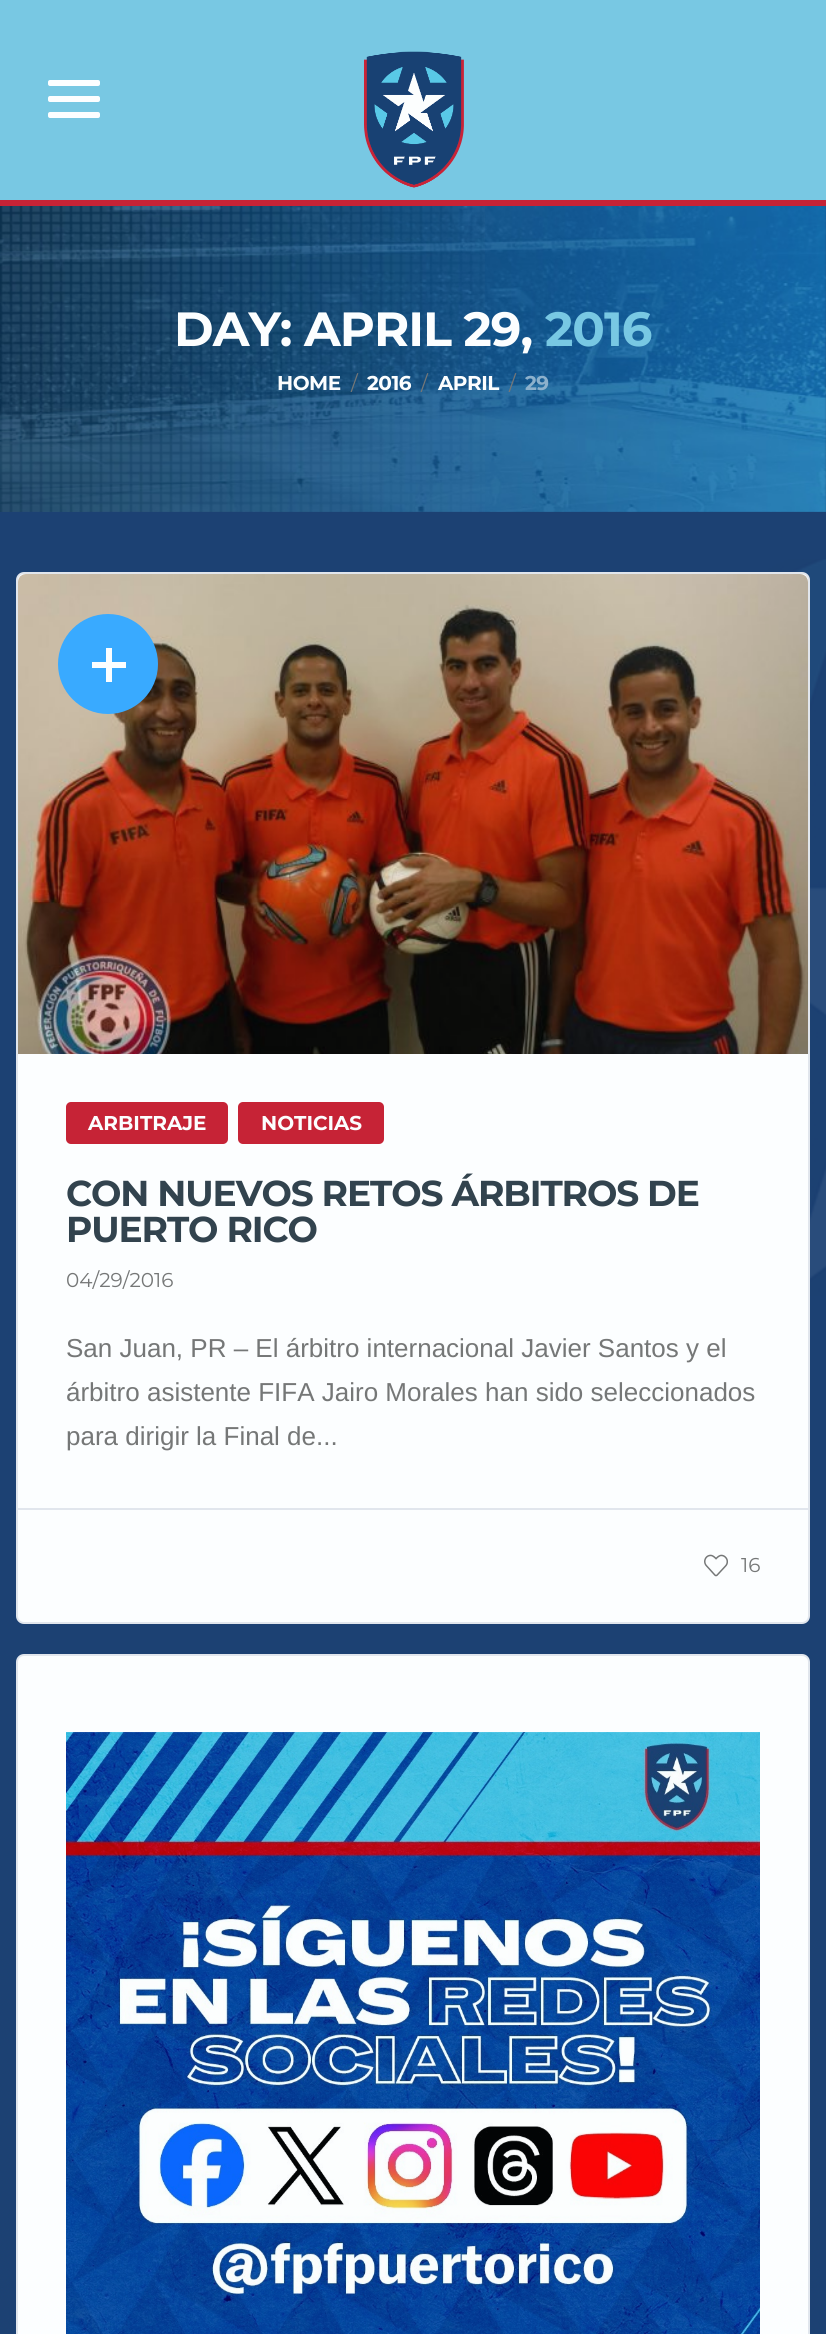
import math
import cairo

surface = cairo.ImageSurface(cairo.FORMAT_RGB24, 826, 2334)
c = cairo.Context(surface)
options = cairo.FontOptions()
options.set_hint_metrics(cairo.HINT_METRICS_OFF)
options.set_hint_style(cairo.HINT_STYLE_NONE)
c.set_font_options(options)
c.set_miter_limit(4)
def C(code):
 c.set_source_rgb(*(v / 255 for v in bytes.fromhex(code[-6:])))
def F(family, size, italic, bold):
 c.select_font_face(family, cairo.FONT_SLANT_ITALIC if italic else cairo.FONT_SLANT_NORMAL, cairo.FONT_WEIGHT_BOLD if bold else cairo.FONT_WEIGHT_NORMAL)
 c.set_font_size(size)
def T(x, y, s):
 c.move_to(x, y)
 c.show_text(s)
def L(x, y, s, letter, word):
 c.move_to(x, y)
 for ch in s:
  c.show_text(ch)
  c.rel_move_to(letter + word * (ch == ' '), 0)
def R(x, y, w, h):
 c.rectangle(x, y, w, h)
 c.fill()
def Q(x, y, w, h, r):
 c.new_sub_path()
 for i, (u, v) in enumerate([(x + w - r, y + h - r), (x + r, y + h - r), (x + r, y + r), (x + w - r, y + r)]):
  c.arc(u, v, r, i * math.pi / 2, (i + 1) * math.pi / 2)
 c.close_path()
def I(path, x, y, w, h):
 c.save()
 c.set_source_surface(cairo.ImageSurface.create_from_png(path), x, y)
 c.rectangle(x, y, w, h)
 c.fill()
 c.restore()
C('1c4173')
c.paint()
I('1.png',526,559,300,737)
C('78c8e3')
R(0,0,826,200)
C('fcfeff')
Q(48,80,52,6,2)
c.fill()
Q(48,96,52,6,2)
c.fill()
Q(48,112,52,6,2)
c.fill()
I('2.png',364,51,100,137)
C('c62336')
R(0,200,826,6)
I('3.png',0,206,826,306)
I('4.png',0,206,485,306)
F('Montserrat',48,0,1)
C('fcfeff')
L(174,346,'DAY: APRIL 29,',-1,0)
C('78c8e3')
L(545,346,'2016',-1,0)
F('Montserrat',20,0,1)
C('fcfeff')
L(277,390,'HOME',-.5,0)
F('Montserrat Thin',20,0,0)
C('757777')
L(351,390,'/',-.5,0)
F('Montserrat',20,0,1)
C('fcfeff')
L(367,390,'2016',-.5,0)
F('Montserrat Thin',20,0,0)
C('757777')
L(421,390,'/',-.5,0)
F('Montserrat',20,0,1)
C('fcfeff')
L(438,390,'APRIL',-.5,0)
F('Montserrat Thin',20,0,0)
C('757777')
L(509,390,'/',-.5,0)
F('Montserrat',20,0,1)
C('8db1cc')
L(525,390,'29',-.5,0)
C('fcfeff')
Q(17,573,792,1050,7)
c.fill_preserve()
C('e1e6ed')
c.stroke()
I('5.png',18,574,790,480)
C('39aaff')
c.arc(108,664,50,0,2 * math.pi)
c.fill()
C('fcfeff')
R(92,662,34,6)
R(106,648,6,34)
C('c62336')
Q(66,1102,162,42,5)
c.fill()
C('fcfeff')
T(88,1130,'ARBITRAJE')
C('c62336')
Q(238,1102,146,42,5)
c.fill()
C('fcfeff')
T(261,1130,'NOTICIAS')
F('Montserrat',36,0,1)
C('32434e')
L(66,1206,'CON NUEVOS RETOS ÁRBITROS DE',-1.1,0)
L(66,1242,'PUERTO RICO',-1.1,0)
F('Montserrat Thin',20,0,0)
C('757777')
T(66,1287,'04/29/2016')
F('Liberation Sans',26,0,0)
T(66,1357,'San Juan, PR – El árbitro internacional Javier Santos y el')
T(66,1401,'árbitro asistente FIFA Jairo Morales han sido seleccionados')
T(66,1445,'para dirigir la Final de...')
C('e1e6ed')
R(18,1508,790,2)
I('6.png',704,1554,24,23)
F('Montserrat Thin',20,0,0)
C('757777')
T(741,1572,'16')
C('fcfeff')
Q(17,1655,792,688,7)
c.fill_preserve()
C('e1e6ed')
c.stroke()
I('7.png',66,1732,694,602)
surface.write_to_png('o.png')
